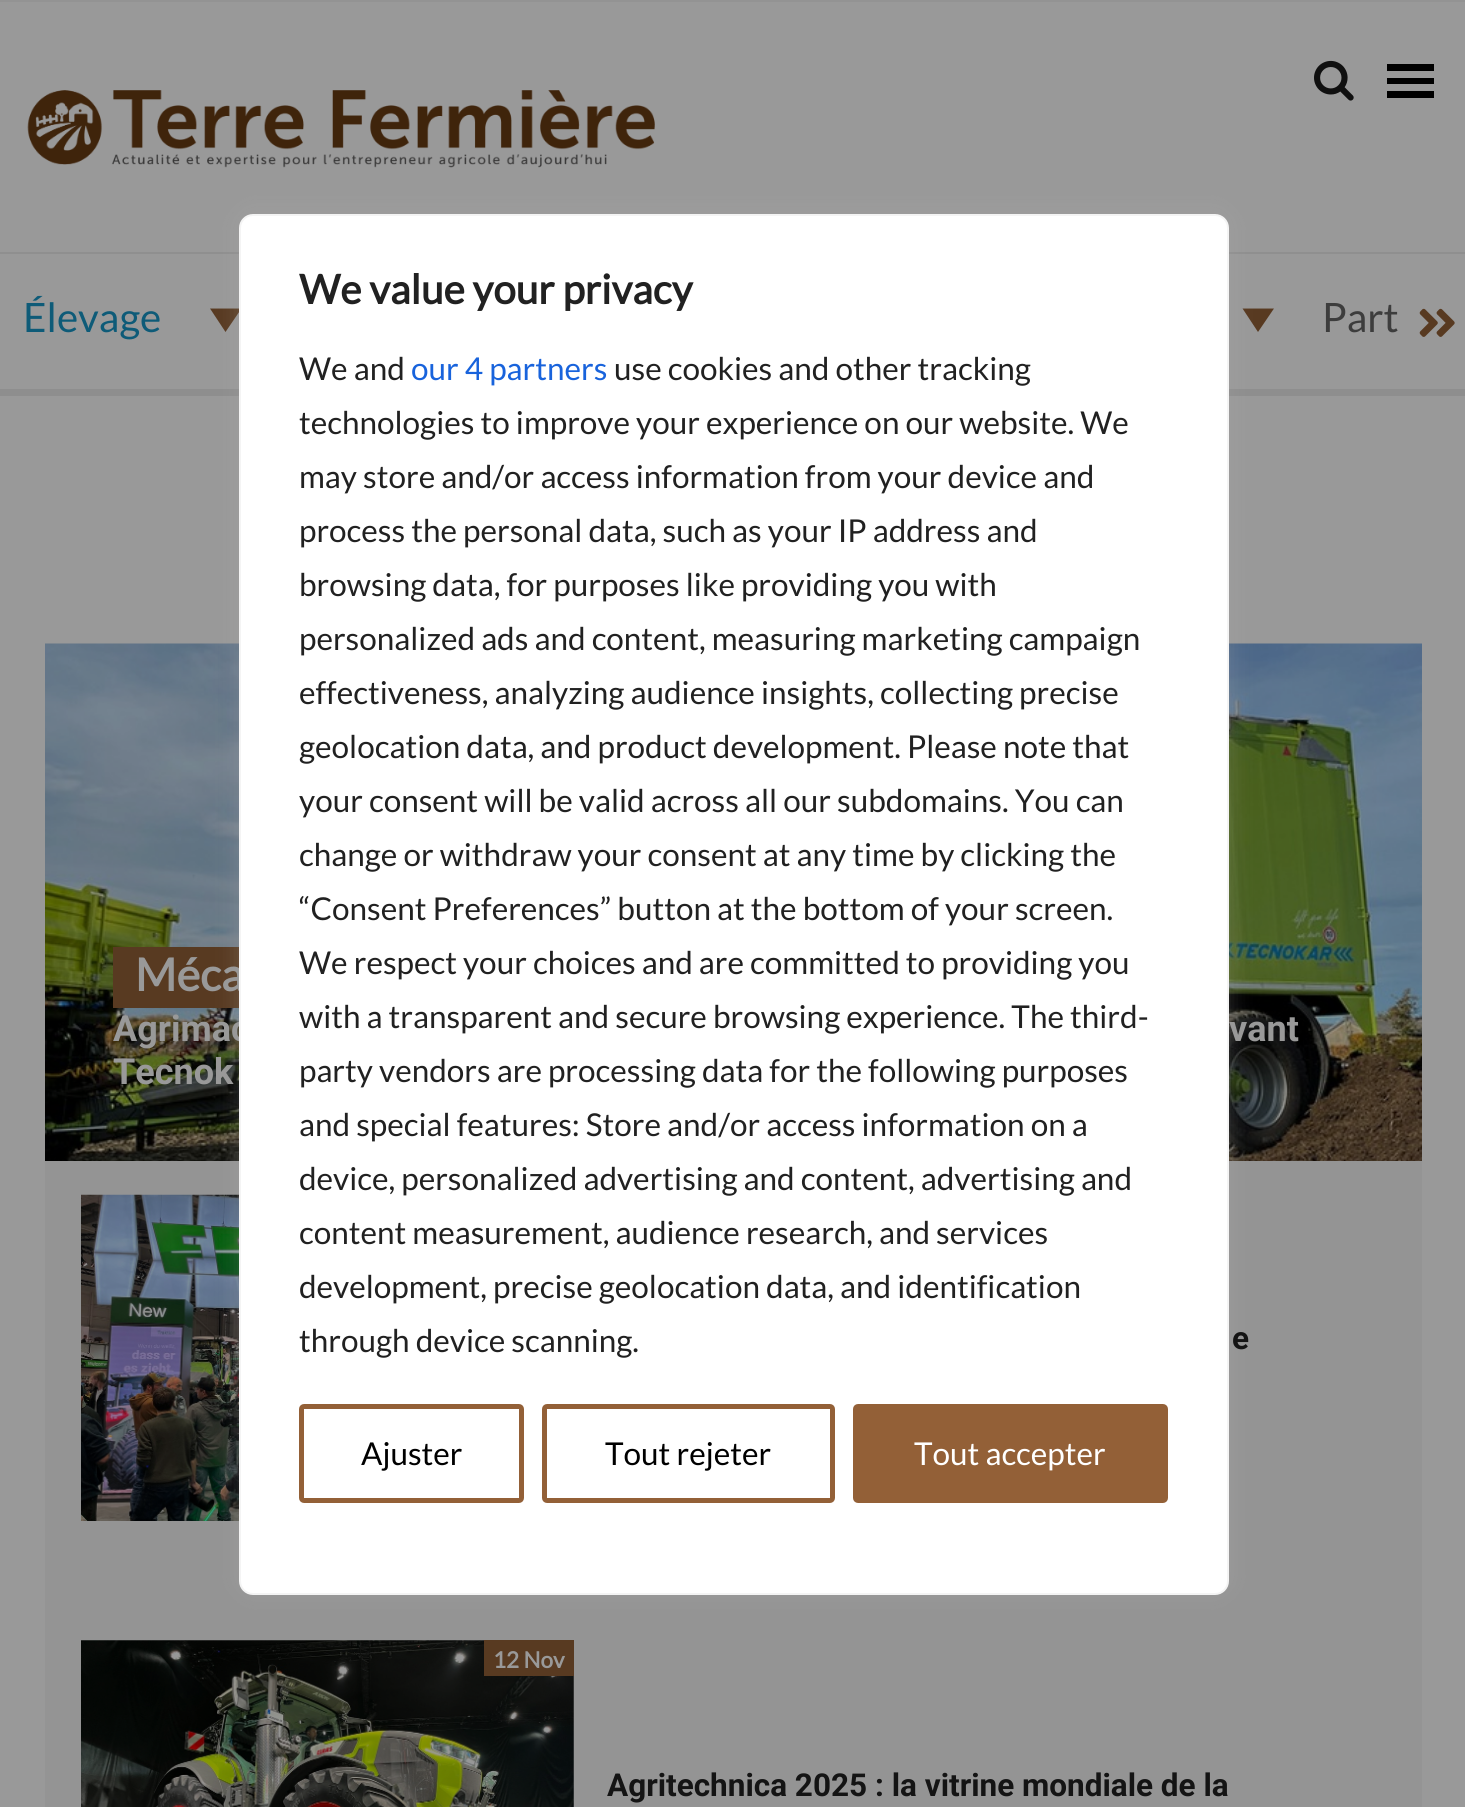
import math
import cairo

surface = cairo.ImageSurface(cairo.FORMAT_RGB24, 1465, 1807)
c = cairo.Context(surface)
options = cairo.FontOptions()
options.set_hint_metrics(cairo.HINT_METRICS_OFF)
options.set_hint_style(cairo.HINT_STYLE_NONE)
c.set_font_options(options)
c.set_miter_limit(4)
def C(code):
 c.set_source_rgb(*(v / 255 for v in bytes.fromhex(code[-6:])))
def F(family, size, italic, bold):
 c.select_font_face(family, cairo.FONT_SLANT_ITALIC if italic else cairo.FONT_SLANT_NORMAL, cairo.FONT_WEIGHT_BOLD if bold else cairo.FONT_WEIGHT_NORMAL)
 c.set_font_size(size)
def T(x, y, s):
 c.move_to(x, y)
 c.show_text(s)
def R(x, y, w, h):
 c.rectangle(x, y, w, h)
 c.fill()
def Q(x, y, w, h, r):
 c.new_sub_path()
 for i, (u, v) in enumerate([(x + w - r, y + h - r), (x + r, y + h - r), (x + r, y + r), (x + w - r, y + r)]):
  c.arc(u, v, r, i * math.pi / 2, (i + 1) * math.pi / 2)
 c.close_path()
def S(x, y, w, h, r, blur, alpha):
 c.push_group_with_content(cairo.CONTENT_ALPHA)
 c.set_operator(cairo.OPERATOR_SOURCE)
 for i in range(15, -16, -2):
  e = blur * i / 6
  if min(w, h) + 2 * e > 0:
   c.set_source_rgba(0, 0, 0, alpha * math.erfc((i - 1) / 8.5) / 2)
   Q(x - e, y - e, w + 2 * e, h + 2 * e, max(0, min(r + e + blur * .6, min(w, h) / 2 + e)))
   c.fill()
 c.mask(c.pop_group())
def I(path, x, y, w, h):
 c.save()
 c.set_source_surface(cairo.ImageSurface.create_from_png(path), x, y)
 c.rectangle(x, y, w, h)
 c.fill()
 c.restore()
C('999999')
c.paint()
C('8f8f8f')
R(0,252,1465,2)
C('8e8e8e')
R(0,389,1465,7)
C('583a21')
c.new_path()
c.move_to(241.5,308.5)
c.line_to(225.5,332)
c.line_to(210,308.5)
c.close_path()
c.fill()
c.new_path()
c.move_to(1274,308.5)
c.line_to(1258,332)
c.line_to(1242.5,308.5)
c.close_path()
c.fill()
I('4.png',45,643,1377,518)
R(113,947,126,61)
C('949494')
R(45,1161,1377,646)
I('5.png',81,1194,158,327)
C('acabab')
S(239,212,990,1381,14,11,.3)
F('Lato',45,0,1)
C('999999')
T(135,991,'Méca')
F('Roboto',36,0,1)
T(113,1041,'Agrimac')
C('ffffff')
Q(240,215,988,1379,13)
c.fill_preserve()
C('f4f4f4')
c.stroke()
F('Lato',40.5,0,1)
C('212121')
T(299,304,'We value your privacy')
F('Lato',31.5,0,0)
T(299,380,'We and')
C('1863dc')
T(411,380,'our 4 partners')
C('212121')
T(614,380,'use cookies and other tracking')
T(299,434,'technologies to improve your experience on our website. We')
T(299,488,'may store and/or access information from your device and')
T(299,542,'process the personal data, such as your IP address and')
T(299,596,'browsing data, for purposes like providing you with')
T(299,650,'personalized ads and content, measuring marketing campaign')
T(299,704,'effectiveness, analyzing audience insights, collecting precise')
T(299,758,'geolocation data, and product development. Please note that')
T(299,812,'your consent will be valid across all our subdomains. You can')
T(299,866,'change or withdraw your consent at any time by clicking the')
T(299,920,'“Consent Preferences” button at the bottom of your screen.')
T(299,974,'We respect your choices and are committed to providing you')
T(299,1028,'with a transparent and secure browsing experience. The third-')
T(299,1082,'party vendors are processing data for the following purposes')
T(299,1136,'and special features: Store and/or access information on a')
T(299,1190,'device, personalized advertising and content, advertising and')
T(299,1244,'content measurement, audience research, and services')
T(299,1298,'development, precise geolocation data, and identification')
T(299,1352,'through device scanning.')
Q(301.5,1406.5,220,94,2.5)
C('936037')
c.set_line_width(5)
c.stroke()
C('000000')
T(361,1465,'Ajuster')
Q(544.5,1406.5,288,94,2.5)
C('936037')
c.stroke()
C('000000')
T(605,1465,'Tout rejeter')
C('936037')
Q(855.5,1406.5,310,94,2.5)
c.fill_preserve()
c.stroke()
C('ffffff')
T(914,1465,'Tout accepter')
C('939393')
R(0,0,1465,2)
I('1.png',1314,60,40,41)
C('000000')
c.new_path()
c.move_to(1387,98)
c.line_to(1434,98)
c.line_to(1434,91)
c.line_to(1387,91)
c.close_path()
c.move_to(1387,64)
c.line_to(1387,71)
c.line_to(1434,71)
c.line_to(1434,64)
c.close_path()
c.move_to(1387,84)
c.line_to(1434,84)
c.line_to(1434,78)
c.line_to(1387,78)
c.close_path()
c.fill()
I('2.png',27,90,628,78)
F('Lato',40.5,0,0)
C('0e5b78')
T(23,332,'Élevage')
C('3d3d3d')
T(1322,332,'Part')
I('3.png',1419,308,36,29)
F('Roboto',36,0,1)
C('999999')
T(1229,1041,'vant')
T(113,1084,'Tecnok')
F('Roboto',31.5,0,1)
C('141414')
T(1232,1349,'e')
I('6.png',81,1640,493,167)
C('583a21')
R(484,1640,90,36)
F('Lato',22.5,0,1)
C('999999')
T(493,1668,'12 Nov')
F('Roboto',31.5,0,1)
C('141414')
T(607,1796,'Agritechnica 2025 : la vitrine mondiale de la')
surface.write_to_png('o.png')
